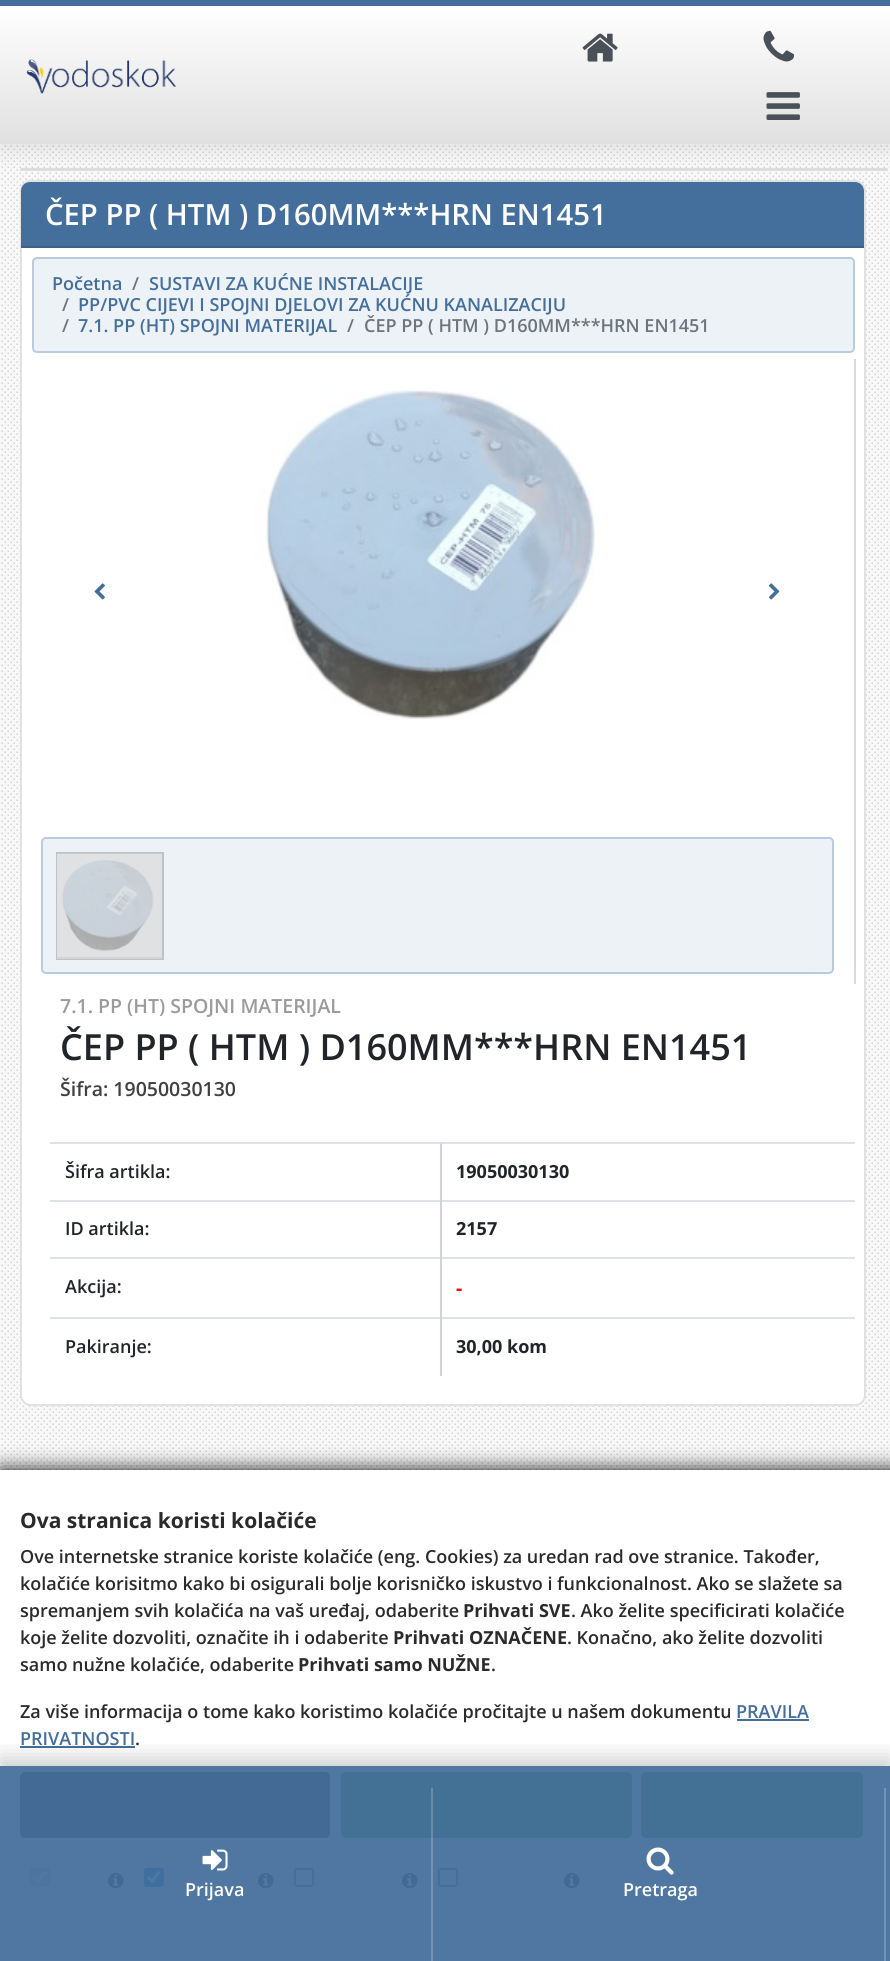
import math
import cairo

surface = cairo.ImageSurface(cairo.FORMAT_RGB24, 890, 1961)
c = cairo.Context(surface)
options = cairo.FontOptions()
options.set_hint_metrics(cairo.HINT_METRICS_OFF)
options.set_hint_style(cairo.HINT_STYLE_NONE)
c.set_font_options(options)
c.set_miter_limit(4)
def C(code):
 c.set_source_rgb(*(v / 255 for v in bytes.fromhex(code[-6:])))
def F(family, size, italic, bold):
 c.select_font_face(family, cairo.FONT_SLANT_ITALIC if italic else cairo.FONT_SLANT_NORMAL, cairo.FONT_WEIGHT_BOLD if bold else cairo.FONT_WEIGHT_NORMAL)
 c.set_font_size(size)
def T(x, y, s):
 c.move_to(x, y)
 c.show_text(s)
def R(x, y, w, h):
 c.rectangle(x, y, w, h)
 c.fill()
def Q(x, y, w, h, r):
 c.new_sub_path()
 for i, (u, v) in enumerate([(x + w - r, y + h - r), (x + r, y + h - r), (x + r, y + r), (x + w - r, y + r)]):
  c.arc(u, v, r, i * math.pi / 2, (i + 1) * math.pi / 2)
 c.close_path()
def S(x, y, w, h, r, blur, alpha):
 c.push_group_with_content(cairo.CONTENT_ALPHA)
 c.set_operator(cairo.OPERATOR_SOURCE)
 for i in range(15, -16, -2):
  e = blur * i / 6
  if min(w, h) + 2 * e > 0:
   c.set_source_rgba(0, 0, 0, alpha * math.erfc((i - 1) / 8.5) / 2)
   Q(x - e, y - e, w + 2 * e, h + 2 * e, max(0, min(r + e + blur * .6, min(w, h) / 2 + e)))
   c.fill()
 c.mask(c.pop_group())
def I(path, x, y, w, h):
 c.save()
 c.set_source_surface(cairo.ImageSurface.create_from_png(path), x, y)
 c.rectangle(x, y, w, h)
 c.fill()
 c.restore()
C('f8f8f8')
c.paint()
I('1.png',1,145,889,1325)
gradient = cairo.LinearGradient(454,168,454,171)
gradient.add_color_stop_rgba(0,1,1,1,1)
gradient.add_color_stop_rgba(1,0.878,0.878,0.878,1)
c.set_source(gradient)
R(20,169,868,2)
C('dddddd')
Q(20,168,868,3,1.5)
c.fill()
C('ffffff')
Q(20,180,846,1226,11)
c.fill()
Q(21,181,844,1224,10)
c.set_source_rgba(0,0,0,0.12)
c.stroke()
C('446e9b')
c.new_path()
c.move_to(30,182)
c.line_to(855,182)
c.curve_to(860,182,864,186,864,191)
c.line_to(864,248)
c.line_to(21,248)
c.line_to(21,191)
c.curve_to(21,186,25,182,30,182)
c.close_path()
c.fill()
C('000000')
S(0,5,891,144,0,11,.1)
C('446e9b')
R(0,0,890,6)
gradient = cairo.LinearGradient(446,6,446,144)
gradient.add_color_stop_rgba(0,1,1,1,1)
gradient.add_color_stop_rgba(1,0.878,0.878,0.878,1)
c.set_source(gradient)
R(0,6,890,138)
I('2.png',26,59,151,35)
I('3.png',582,33,36,29)
I('4.png',763,30,32,32)
I('5.png',766,92,34,28)
C('3c6088')
R(21,246,843,2)
F('Open Sans SemiBold',29.25,0,0)
C('ffffff')
T(45,225,'ČEP PP ( HTM ) D160MM***HRN EN1451')
C('edf2f7')
Q(33,258,821,94,4)
c.fill_preserve()
C('b8cbe0')
c.stroke()
F('Open Sans SemiBold',18,0,0)
C('446e9b')
T(52,290,'Početna')
C('6c757d')
T(132,290,'/')
C('446e9b')
T(149,290,'SUSTAVI ZA KUĆNE INSTALACIJE')
C('6c757d')
T(62,311,'/')
C('446e9b')
T(78,311,'PP/PVC CIJEVI I SPOJNI DJELOVI ZA KUĆNU KANALIZACIJU')
C('6c757d')
T(62,332,'/')
C('446e9b')
T(78,332,'7.1. PP (HT) SPOJNI MATERIJAL')
C('6c757d')
T(347,332,'/')
T(364,332,'ČEP PP ( HTM ) D160MM***HRN EN1451')
C('d8d8d8')
R(854,359,2,625)
I('6.png',94,583,11,17)
I('7.png',253,390,342,329)
I('8.png',768,583,12,17)
C('edf2f7')
Q(42,838,791,135,4)
c.fill_preserve()
C('b8cbe0')
c.stroke()
C('bec2c6')
R(56,852,108,108)
C('d2d4d7')
R(57,854,105,105)
I('9.png',57,853,105,104)
F('Open Sans SemiBold',19.5,0,0)
C('9b9b9b')
T(60,1013,'7.1. PP (HT) SPOJNI MATERIJAL')
F('Open Sans SemiBold',36,0,0)
C('212529')
T(60,1060,'ČEP PP ( HTM ) D160MM***HRN EN1451')
F('Open Sans SemiBold',19.5,0,0)
C('404040')
T(60,1096,'Šifra: 19050030130')
C('dee2e6')
R(440,1142,415,2)
R(440,1200,415,2)
R(440,1257,415,2)
R(440,1317,415,2)
C('ced4da')
R(440,1317,2,59)
C('dee2e6')
R(50,1317,391,2)
C('ced4da')
R(440,1257,2,62)
C('dee2e6')
R(50,1257,391,2)
C('ced4da')
R(440,1200,2,59)
C('dee2e6')
R(50,1200,391,2)
C('ced4da')
R(440,1142,2,60)
C('dee2e6')
R(50,1142,391,2)
F('Open Sans SemiBold',18,0,0)
C('212529')
T(65,1178,'Šifra artikla:')
F('Open Sans',18,0,1)
T(456,1178,'19050030130')
F('Open Sans SemiBold',18,0,0)
T(65,1235,'ID artikla:')
F('Open Sans',18,0,1)
T(456,1235,'2157')
F('Open Sans SemiBold',18,0,0)
T(65,1293,'Akcija:')
F('Open Sans',19.5,0,1)
C('ff0000')
T(456,1295,'-')
F('Open Sans SemiBold',18,0,0)
C('212529')
T(65,1353,'Pakiranje:')
F('Open Sans',18,0,1)
T(456,1353,'30,00 kom')
C('121212')
S(0,1470,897,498,0,10.5,1)
C('ffffff')
R(0,1470,890,491)
F('Open Sans',21,0,1)
C('2a2a2a')
T(20,1528,'Ova stranica koristi kolačiće')
F('Open Sans SemiBold',18,0,0)
T(20,1563,'Ove internetske stranice koriste kolačiće (eng. Cookies) za uredan rad ove stranice. Također,')
T(20,1590,'kolačiće korisitmo kako bi osigurali bolje korisničko iskustvo i funkcionalnost. Ako se slažete sa')
T(20,1617,'spremanjem svih kolačića na vaš uređaj, odaberite')
F('Open Sans',18,0,1)
T(463,1617,'Prihvati SVE')
F('Open Sans SemiBold',18,0,0)
T(571,1617,'. Ako želite specificirati kolačiće')
T(20,1644,'koje želite dozvoliti, označite ih i odaberite')
F('Open Sans',18,0,1)
T(393,1644,'Prihvati OZNAČENE')
F('Open Sans SemiBold',18,0,0)
T(567,1644,'. Konačno, ako želite dozvoliti')
T(20,1671,'samo nužne kolačiće, odaberite')
F('Open Sans',18,0,1)
T(298,1671,'Prihvati samo NUŽNE')
F('Open Sans SemiBold',18,0,0)
T(491,1671,'.')
T(20,1718,'Za više informacija o tome kako koristimo kolačiće pročitajte u našem dokumentu')
C('446e9b')
T(736,1718,'PRAVILA')
R(737,1719,72,2)
T(20,1745,'PRIVATNOSTI')
R(20,1746,115,2)
C('2a2a2a')
T(135,1745,'.')
C('343a40')
Q(21,1773,308,64,4)
c.fill_preserve()
c.stroke()
C('28a745')
Q(342,1773,289,64,4)
c.fill_preserve()
c.stroke()
Q(642,1773,220,64,4)
c.fill_preserve()
c.stroke()
C('d6d6d6')
Q(30,1868,20,19,3)
c.fill()
c.new_path()
c.move_to(34,1877)
c.line_to(38,1881)
c.line_to(45.5,1871.5)
C('ffffff')
c.set_line_width(3.1)
c.stroke()
I('10.png',108,1872,16,17)
C('0075ff')
Q(144,1868,20,19,3)
c.fill()
c.new_path()
c.move_to(148,1877)
c.line_to(152,1881)
c.line_to(159.5,1871.5)
C('ffffff')
c.stroke()
I('10.png',258,1872,16,17)
Q(295,1869,18,17,2)
C('767676')
c.set_line_width(2)
c.stroke()
I('10.png',402,1872,16,17)
Q(439,1869,18,17,2)
c.stroke()
I('10.png',564,1872,16,17)
c.save()
c.rectangle(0,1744,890,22)
c.clip()
C('000000')
S(0,1758,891,197,0,11,.2)
c.restore()
c.set_source_rgba(0.267,0.431,0.608,0.93)
R(0,1766,890,195)
c.set_source_rgba(1,1,1,0.2)
R(431,1788,2,173)
I('11.png',202,1849,26,22)
C('ffffff')
T(185,1896,'Prijava')
C('7493b5')
R(884,1788,2,173)
I('12.png',646,1847,28,28)
C('ffffff')
T(623,1896,'Pretraga')
surface.write_to_png('o.png')
